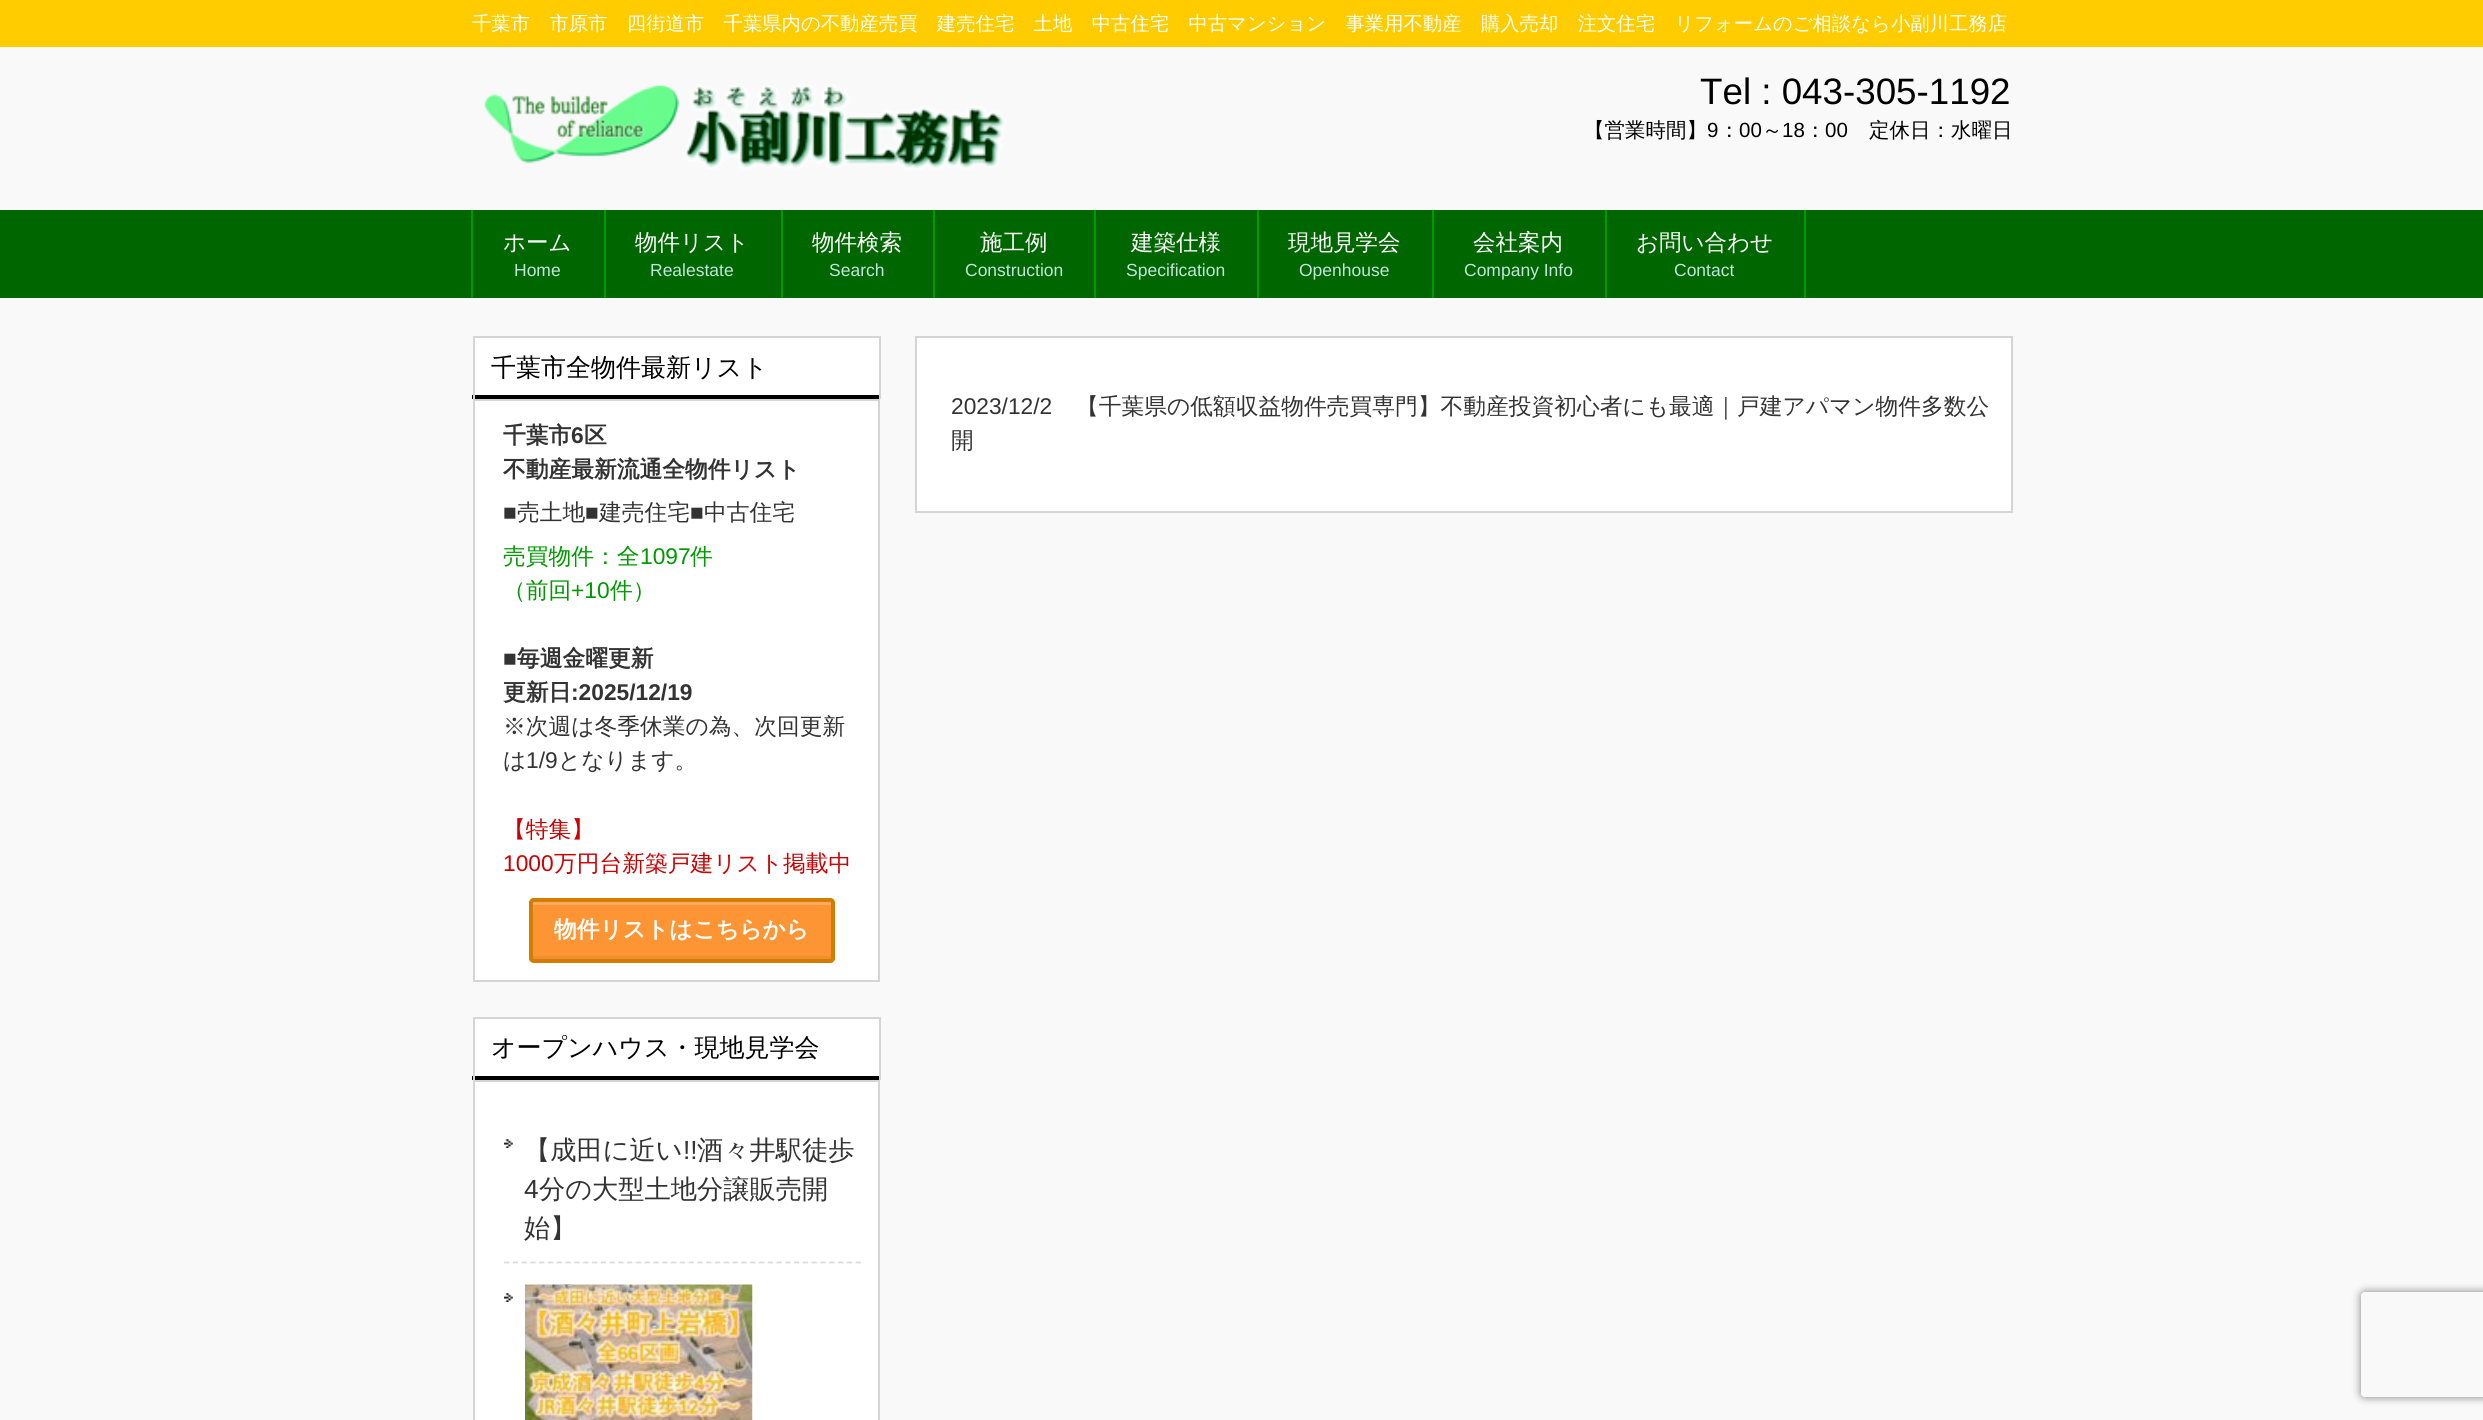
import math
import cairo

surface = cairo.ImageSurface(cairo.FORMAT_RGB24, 2483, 1420)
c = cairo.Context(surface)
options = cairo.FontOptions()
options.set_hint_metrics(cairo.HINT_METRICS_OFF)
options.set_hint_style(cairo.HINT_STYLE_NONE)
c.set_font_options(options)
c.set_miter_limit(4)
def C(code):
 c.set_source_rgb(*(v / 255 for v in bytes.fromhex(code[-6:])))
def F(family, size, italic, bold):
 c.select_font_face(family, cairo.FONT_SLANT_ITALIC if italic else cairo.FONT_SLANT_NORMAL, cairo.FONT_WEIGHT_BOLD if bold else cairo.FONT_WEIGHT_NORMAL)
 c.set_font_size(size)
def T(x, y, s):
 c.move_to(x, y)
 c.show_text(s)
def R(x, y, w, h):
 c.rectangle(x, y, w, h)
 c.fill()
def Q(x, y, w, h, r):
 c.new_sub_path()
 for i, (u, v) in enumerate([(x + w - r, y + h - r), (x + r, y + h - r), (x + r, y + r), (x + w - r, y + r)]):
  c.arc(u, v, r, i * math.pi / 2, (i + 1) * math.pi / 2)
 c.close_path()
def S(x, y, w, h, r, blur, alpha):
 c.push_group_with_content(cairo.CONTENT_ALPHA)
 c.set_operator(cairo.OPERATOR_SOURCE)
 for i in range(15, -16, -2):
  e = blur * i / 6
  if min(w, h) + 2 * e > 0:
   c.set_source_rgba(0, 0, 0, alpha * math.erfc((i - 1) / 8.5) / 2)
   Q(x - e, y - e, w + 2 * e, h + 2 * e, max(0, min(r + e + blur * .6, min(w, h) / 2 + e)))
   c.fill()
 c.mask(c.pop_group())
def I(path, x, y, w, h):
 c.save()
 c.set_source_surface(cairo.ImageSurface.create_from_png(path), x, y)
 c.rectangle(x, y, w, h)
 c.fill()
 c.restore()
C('f9f9f9')
c.paint()
C('ffcc00')
R(0,0,2483,47)
F('WenQuanYi Zen Hei Medium',19.35,0,0)
C('ffffff')
T(472,30,'千葉市　市原市　四街道市　千葉県内の不動産売買　建売住宅　土地　中古住宅　中古マンション　事業用不動産　購入売却　注文住宅　リフォームのご相談なら小副川工務店')
I('1.png',484,84,522,86)
F('Liberation Sans',36.75,0,0)
C('000000')
T(1700,104,'Tel : 043-305-1192')
F('WenQuanYi Zen Hei Medium',20.5,0,0)
T(1584,137,'【営業時間】')
F('Liberation Sans',20.5,0,0)
T(1707,137,'9')
F('WenQuanYi Zen Hei Medium',20.5,0,0)
T(1719,137,'：')
F('Liberation Sans',20.5,0,0)
T(1739,137,'00')
F('WenQuanYi Zen Hei Medium',20.5,0,0)
T(1762,137,'～')
F('Liberation Sans',20.5,0,0)
T(1782,137,'18')
F('WenQuanYi Zen Hei Medium',20.5,0,0)
T(1805,137,'：')
F('Liberation Sans',20.5,0,0)
T(1825,137,'00')
F('WenQuanYi Zen Hei Medium',20.5,0,0)
T(1869,137,'定休日：水曜日')
C('006600')
R(0,210,2483,88)
C('009900')
R(471,210,2,88)
R(604,210,2,88)
F('WenQuanYi Zen Hei Medium',22.5,0,0)
C('ffffff')
T(503,250,'ホーム')
F('Liberation Sans',17.5,0,0)
C('c3e4db')
T(514,276,'Home')
C('009900')
R(781,210,2,88)
F('WenQuanYi Zen Hei Medium',22.5,0,0)
C('ffffff')
T(635,250,'物件リスト')
F('Liberation Sans',17.5,0,0)
C('c3e4db')
T(650,276,'Realestate')
C('009900')
R(933,210,2,88)
F('WenQuanYi Zen Hei Medium',22.5,0,0)
C('ffffff')
T(812,250,'物件検索')
F('Liberation Sans',17.5,0,0)
C('c3e4db')
T(829,276,'Search')
C('009900')
R(1094,210,2,88)
F('WenQuanYi Zen Hei Medium',22.5,0,0)
C('ffffff')
T(980,250,'施工例')
F('Liberation Sans',17.5,0,0)
C('c3e4db')
T(965,276,'Construction')
C('009900')
R(1257,210,2,88)
F('WenQuanYi Zen Hei Medium',22.5,0,0)
C('ffffff')
T(1131,250,'建築仕様')
F('Liberation Sans',17.5,0,0)
C('c3e4db')
T(1126,276,'Specification')
C('009900')
R(1432,210,2,88)
F('WenQuanYi Zen Hei Medium',22.5,0,0)
C('ffffff')
T(1288,250,'現地見学会')
F('Liberation Sans',17.5,0,0)
C('c3e4db')
T(1299,276,'Openhouse')
C('009900')
R(1605,210,2,88)
F('WenQuanYi Zen Hei Medium',22.5,0,0)
C('ffffff')
T(1473,250,'会社案内')
F('Liberation Sans',17.5,0,0)
C('c3e4db')
T(1464,276,'Company Info')
C('009900')
R(1804,210,2,88)
F('WenQuanYi Zen Hei Medium',22.5,0,0)
C('ffffff')
T(1636,250,'お問い合わせ')
F('Liberation Sans',17.5,0,0)
C('c3e4db')
T(1674,276,'Contact')
C('ffffff')
R(475,338,404,57)
C('000000')
R(472,395,409,4)
C('d5d5d5')
R(473,336,407,2)
R(879,336,2,63)
R(473,336,2,63)
F('WenQuanYi Zen Hei Medium',25,0,0)
C('000000')
T(491,376,'千葉市全物件最新リスト')
C('ffffff')
c.rectangle(474,400,405,581)
c.fill_preserve()
C('d5d5d5')
c.stroke()
F('WenQuanYi Zen Hei',22.75,0,1)
C('333333')
T(503,443,'千葉市')
F('Liberation Sans',22.75,0,1)
T(571,443,'6')
F('WenQuanYi Zen Hei',22.75,0,1)
T(584,443,'区')
T(503,477,'不動産最新流通全物件リスト')
F('Liberation Sans',22.75,0,0)
T(503,520,'■')
F('WenQuanYi Zen Hei Medium',22.75,0,0)
T(517,520,'売土地')
F('Liberation Sans',22.75,0,0)
T(585,520,'■')
F('WenQuanYi Zen Hei Medium',22.75,0,0)
T(599,520,'建売住宅')
F('Liberation Sans',22.75,0,0)
T(690,520,'■')
F('WenQuanYi Zen Hei Medium',22.75,0,0)
T(704,520,'中古住宅')
C('009900')
T(503,564,'売買物件：全')
F('Liberation Sans',22.75,0,0)
T(640,564,'1097')
F('WenQuanYi Zen Hei Medium',22.75,0,0)
T(690,564,'件')
T(503,598,'（前回')
F('Liberation Sans',22.75,0,0)
T(571,598,'+10')
F('WenQuanYi Zen Hei Medium',22.75,0,0)
T(610,598,'件）')
F('Liberation Sans',22.75,0,1)
C('333333')
T(503,666,'■')
F('WenQuanYi Zen Hei',22.75,0,1)
T(517,666,'毎週金曜更新')
T(503,700,'更新日')
F('Liberation Sans',22.75,0,1)
T(571,700,':2025/12/19')
F('WenQuanYi Zen Hei Medium',22.75,0,0)
T(503,734,'※次週は冬季休業の為、次回更新')
T(503,768,'は')
F('Liberation Sans',22.75,0,0)
T(526,768,'1/9')
F('WenQuanYi Zen Hei Medium',22.75,0,0)
T(558,768,'となります。')
C('cc0000')
T(503,837,'【特集】')
F('Liberation Sans',22.75,0,0)
T(503,871,'1000')
F('WenQuanYi Zen Hei Medium',22.75,0,0)
T(554,871,'万円台新築戸建リスト掲載中')
C('fd9535')
Q(529,898,306,65,5)
c.fill()
C('f08e32')
c.new_path()
c.move_to(532,954)
c.curve_to(532,956,531,959,534,959)
c.line_to(829,959)
c.curve_to(832,959,831,956,831,954)
c.line_to(830,956)
c.line_to(534,956)
c.curve_to(533,956,532,955,532,954)
c.close_path()
c.fill()
C('fdaa5d')
c.new_path()
c.move_to(534,905)
c.line_to(830,905)
c.line_to(831,906)
c.curve_to(831,904,832,901,829,901)
c.line_to(534,901)
c.curve_to(531,901,532,904,532,906)
c.close_path()
c.fill()
Q(531,900,302,61,3)
C('d27d00')
c.set_line_width(4)
c.stroke()
F('WenQuanYi Zen Hei',22.75,0,1)
C('ffffff')
T(554,937,'物件リストはこちらから')
R(475,1019,404,57)
C('000000')
R(472,1076,409,4)
C('d5d5d5')
R(473,1017,407,2)
R(879,1017,2,63)
R(473,1017,2,63)
F('WenQuanYi Zen Hei Medium',25,0,0)
C('000000')
T(491,1056,'オープンハウス・現地見学会')
C('ffffff')
c.rectangle(474,1081,405,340)
c.fill_preserve()
C('d5d5d5')
c.set_line_width(2)
c.stroke()
I('2.png',504,1139,9,9)
c.new_path()
c.move_to(504,1262.5)
c.line_to(861,1262.5)
C('dcdcdc')
c.set_line_width(1.8)
c.set_dash([5.25,3.54])
c.stroke()
F('WenQuanYi Zen Hei Medium',26.25,0,0)
C('333333')
T(524,1159,'【成田に近い')
F('Liberation Sans',26.25,0,0)
T(683,1159,'!!')
F('WenQuanYi Zen Hei Medium',26.25,0,0)
T(697,1159,'酒々井駅徒歩')
F('Liberation Sans',26.25,0,0)
T(524,1198,'4')
F('WenQuanYi Zen Hei Medium',26.25,0,0)
T(539,1198,'分の大型土地分譲販売開')
T(524,1237,'始】')
I('2.png',504,1293,9,9)
I('3.png',525,1284,228,136)
C('ffffff')
c.rectangle(916,337,1096,175)
c.fill_preserve()
C('d5d5d5')
c.set_line_width(2)
c.set_dash([])
c.stroke()
F('Liberation Sans',22.75,0,0)
C('333333')
T(951,414,'2023/12/2')
F('WenQuanYi Zen Hei Medium',22.75,0,0)
T(1076,414,'【千葉県の低額収益物件売買専門】不動産投資初心者にも最適｜戸建アパマン物件多数公')
T(951,448,'開')
c.save()
c.set_fill_rule(cairo.FILL_RULE_EVEN_ODD)
c.new_path()
c.move_to(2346,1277)
c.line_to(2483,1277)
c.line_to(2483,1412)
c.line_to(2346,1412)
c.close_path()
c.move_to(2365,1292)
c.line_to(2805,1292)
c.curve_to(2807,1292,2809,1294,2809,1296)
c.line_to(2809,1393)
c.curve_to(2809,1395,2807,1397,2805,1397)
c.line_to(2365,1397)
c.curve_to(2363,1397,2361,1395,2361,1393)
c.line_to(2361,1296)
c.curve_to(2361,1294,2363,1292,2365,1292)
c.close_path()
c.clip()
C('808080')
S(2361,1292,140,105,4,4.5,1)
c.restore()
surface.write_to_png('o.png')
